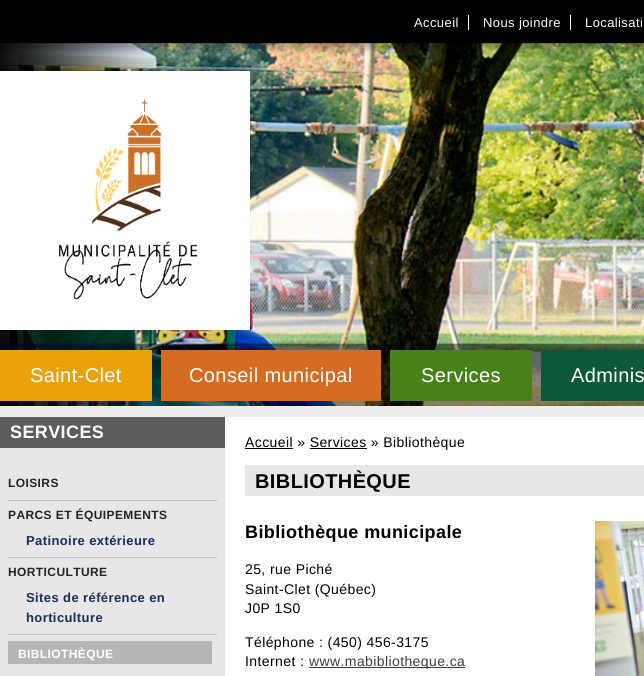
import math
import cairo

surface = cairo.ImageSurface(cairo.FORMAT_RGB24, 644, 676)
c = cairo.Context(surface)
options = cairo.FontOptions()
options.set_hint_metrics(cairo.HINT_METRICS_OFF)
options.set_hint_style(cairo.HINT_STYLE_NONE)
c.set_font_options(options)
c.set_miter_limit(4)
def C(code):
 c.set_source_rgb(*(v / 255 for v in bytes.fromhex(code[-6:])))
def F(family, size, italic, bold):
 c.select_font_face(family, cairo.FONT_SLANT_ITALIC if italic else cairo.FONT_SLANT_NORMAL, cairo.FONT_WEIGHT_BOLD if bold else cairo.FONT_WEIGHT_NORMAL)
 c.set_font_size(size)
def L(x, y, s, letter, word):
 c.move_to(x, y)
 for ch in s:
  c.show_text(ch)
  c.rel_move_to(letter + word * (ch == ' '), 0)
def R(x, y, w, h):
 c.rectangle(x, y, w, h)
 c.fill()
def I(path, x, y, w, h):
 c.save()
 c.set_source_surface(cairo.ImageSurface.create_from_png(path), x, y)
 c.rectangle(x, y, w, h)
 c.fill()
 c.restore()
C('000000')
c.paint()
I('1.png',0,406,644,11)
F('Liberation Sans',13,0,0)
C('ffffff')
L(414,27,'Accueil',.4,0)
R(468,15,1,15)
L(483,27,'Nous joindre',.4,0)
R(570,15,1,15)
L(585,27,'Localisati',.4,0)
I('4.png',0,38,644,368)
I('2.png',0,71,250,259)
C('eba10c')
R(0,350,152,51)
F('Liberation Sans',20,0,0)
C('ffffff')
L(30,382,'Saint-Clet',.4,0)
C('d56c21')
R(161,350,220,51)
C('ffffff')
L(189,382,'Conseil municipal',.4,0)
C('48811a')
R(390,350,142,51)
C('ffffff')
L(421,382,'Services',.4,0)
C('0d583a')
R(541,350,103,51)
C('ffffff')
L(571,382,'Adminis',.4,0)
R(225,417,419,259)
C('e7e7e7')
R(0,448,225,228)
C('5c5c5c')
R(0,417,225,31)
F('Liberation Sans',18,0,1)
C('ffffff')
L(10,438,'SERVICES',.4,0)
C('bdc2cb')
R(8,500,209,1)
F('Liberation Sans',12,0,1)
C('222424')
L(8,487,'LOISIRS',.4,0)
C('bdc2cb')
R(8,557,209,1)
C('222424')
L(8,519,'PARCS ET ÉQUIPEMENTS',.4,0)
F('Liberation Sans',13,0,1)
C('172e5a')
L(26,545,'Patinoire extérieure',.4,0)
C('bdc2cb')
R(8,634,209,1)
F('Liberation Sans',12,0,1)
C('222424')
L(8,576,'HORTICULTURE',.4,0)
F('Liberation Sans',13,0,1)
C('172e5a')
L(26,602,'Sites de référence en',.4,0)
L(26,622,'horticulture',.4,0)
C('b7b6b6')
R(8,641,204,23)
F('Liberation Sans',12,0,1)
C('ffffff')
L(18,658,'BIBLIOTHÈQUE',.4,0)
C('000000')
R(245,448,48,1)
F('Liberation Sans',14,0,0)
L(245,447,'Accueil » Services » Bibliothèque',.4,0)
R(310,448,57,1)
C('e7e7e7')
R(245,465,399,31)
F('Liberation Sans',20,0,1)
C('000000')
L(255,488,'BIBLIOTHÈQUE',.4,0)
F('Liberation Sans',18,0,1)
L(245,538,'Bibliothèque municipale',.4,0)
I('3.png',595,521,49,155)
F('Liberation Sans',14,0,0)
L(245,574,'25, rue Piché',.4,0)
L(245,594,'Saint-Clet (Québec)',.4,0)
L(245,613,'J0P 1S0',.4,0)
L(245,647,'Téléphone : (450) 456-3175',.4,0)
L(245,666,'Internet :',.4,0)
C('3e3d3d')
R(309,667,156,1)
L(309,666,'www.mabibliotheque.ca',.4,0)
surface.write_to_png('o.png')
